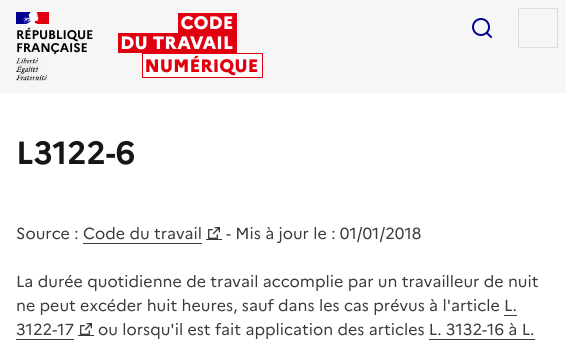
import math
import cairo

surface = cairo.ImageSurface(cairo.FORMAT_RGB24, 566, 347)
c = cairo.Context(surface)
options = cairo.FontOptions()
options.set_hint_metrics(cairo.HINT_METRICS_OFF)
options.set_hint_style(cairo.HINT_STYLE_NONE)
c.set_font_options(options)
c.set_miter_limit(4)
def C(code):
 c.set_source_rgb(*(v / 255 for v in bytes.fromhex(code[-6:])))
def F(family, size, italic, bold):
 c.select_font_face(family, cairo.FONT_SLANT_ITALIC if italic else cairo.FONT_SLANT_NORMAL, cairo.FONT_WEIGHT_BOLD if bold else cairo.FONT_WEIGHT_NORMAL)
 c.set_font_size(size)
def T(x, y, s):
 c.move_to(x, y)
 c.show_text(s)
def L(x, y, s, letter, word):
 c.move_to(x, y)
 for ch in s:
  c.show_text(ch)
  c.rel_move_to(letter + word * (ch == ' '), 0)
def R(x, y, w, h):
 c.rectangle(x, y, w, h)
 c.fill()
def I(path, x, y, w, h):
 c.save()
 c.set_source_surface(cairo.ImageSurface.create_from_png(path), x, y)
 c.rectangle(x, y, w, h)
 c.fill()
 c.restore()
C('ffffff')
c.paint()
C('f6f6f6')
R(0,0,566,93)
C('000091')
R(16,12,16,12)
C('e1000f')
R(34,12,15,12)
I('1.png',23,12,16,12)
F('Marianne',12.5,0,1)
C('000000')
L(16,39,'RÉPUBLIQUE',-.1,0)
L(16,52,'FRANÇAISE',-.1,0)
I('2.png',16,58,31,23)
I('3.png',118,13,145,65)
I('4.png',472,18,21,21)
c.rectangle(518.5,8.5,39,39)
C('dddddd')
c.set_line_width(1)
c.stroke()
F('Marianne',32,0,1)
C('161616')
T(16,164,'L3122-6')
F('Marianne',16,0,0)
C('3a3a3a')
T(16,239,'Source : Code du travail')
T(226,239,'- Mis à jour le : 01/01/2018')
R(83,243,119,1)
R(206,239,16,1)
I('5.png',208,227,12,12)
T(16,287,'La durée quotidienne de travail accomplie par un travailleur de nuit')
T(16,311,'ne peut excéder huit heures, sauf dans les cas prévus à l\'article L.')
R(504,315,13,1)
R(16,339,58,1)
R(78,335,16,1)
T(16,335,'3122-17')
I('5.png',80,323,12,12)
T(98,335,'ou lorsqu\'il est fait application des articles L. 3132-16 à L.')
R(429,339,106,1)
surface.write_to_png('o.png')
